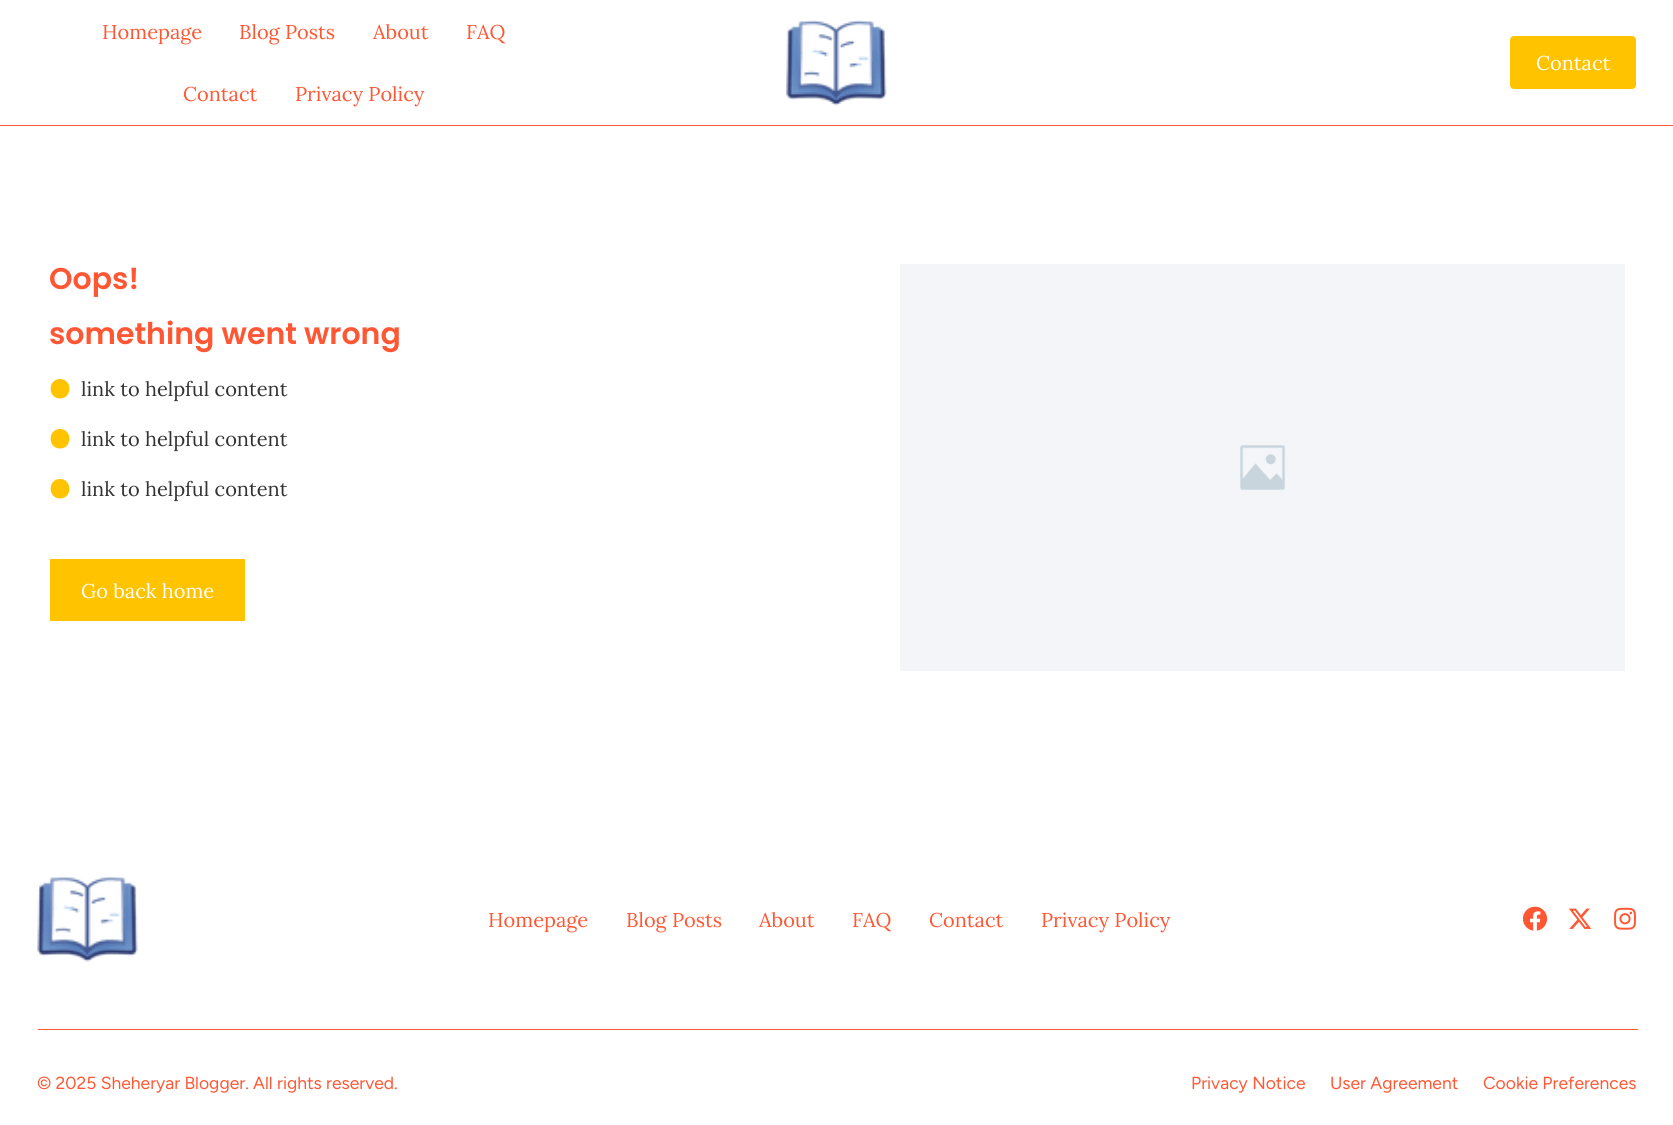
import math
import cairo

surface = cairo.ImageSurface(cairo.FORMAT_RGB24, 1673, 1125)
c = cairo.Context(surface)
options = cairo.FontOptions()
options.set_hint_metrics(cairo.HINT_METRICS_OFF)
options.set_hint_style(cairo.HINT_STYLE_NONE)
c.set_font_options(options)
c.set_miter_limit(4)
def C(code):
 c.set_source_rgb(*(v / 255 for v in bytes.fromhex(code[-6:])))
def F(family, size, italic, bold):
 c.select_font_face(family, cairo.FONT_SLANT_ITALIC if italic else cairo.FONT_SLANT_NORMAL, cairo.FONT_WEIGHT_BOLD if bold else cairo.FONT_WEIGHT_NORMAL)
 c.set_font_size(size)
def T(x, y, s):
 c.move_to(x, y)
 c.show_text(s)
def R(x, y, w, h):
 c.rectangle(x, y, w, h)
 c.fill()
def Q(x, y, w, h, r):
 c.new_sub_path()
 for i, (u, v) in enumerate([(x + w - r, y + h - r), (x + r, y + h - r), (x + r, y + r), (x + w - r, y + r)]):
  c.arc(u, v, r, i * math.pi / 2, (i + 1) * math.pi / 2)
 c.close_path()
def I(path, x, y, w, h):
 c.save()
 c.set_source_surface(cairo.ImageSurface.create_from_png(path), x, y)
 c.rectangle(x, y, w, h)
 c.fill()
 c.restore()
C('ffffff')
c.paint()
C('ff5733')
R(0,125,1673,1)
F('Lora',20,0,0)
T(102,39,'Homepage')
T(239,39,'Blog Posts')
T(373,39,'About')
T(466,39,'FAQ')
T(183,101,'Contact')
T(295,101,'Privacy Policy')
I('1.png',786,20,101,86)
C('ffc300')
Q(1510.5,36.5,125,52,3.5)
c.fill_preserve()
c.set_line_width(1)
c.stroke()
C('ffffff')
T(1536,70,'Contact')
F('Poppins SemiBold',30,0,0)
C('ff5733')
T(49,289,'Oops!')
T(49,344,'something went wrong')
C('ffc300')
c.new_path()
c.move_to(60,379)
c.curve_to(47.5,379,47.5,398.5,60,398.5)
c.curve_to(72.5,398.5,72.5,379,60,379)
c.close_path()
c.fill()
F('Lora',20,0,0)
C('333333')
T(81,396,'link to helpful content')
C('ffc300')
c.new_path()
c.move_to(60,429)
c.curve_to(47.5,429,47.5,448.5,60,448.5)
c.curve_to(72.5,448.5,72.5,429,60,429)
c.close_path()
c.fill()
C('333333')
T(81,446,'link to helpful content')
C('ffc300')
c.new_path()
c.move_to(60,479)
c.curve_to(47.5,479,47.5,498.5,60,498.5)
c.curve_to(72.5,498.5,72.5,479,60,479)
c.close_path()
c.fill()
C('333333')
T(81,496,'link to helpful content')
C('ffc300')
R(50,559,195,62)
C('ffffff')
T(81,598,'Go back home')
I('2.png',900,264,725,407)
C('ff5733')
R(38,1029,1600,1)
I('3.png',37,876,101,86)
T(488,927,'Homepage')
T(626,927,'Blog Posts')
T(759,927,'About')
T(852,927,'FAQ')
T(929,927,'Contact')
T(1041,927,'Privacy Policy')
I('4.png',1523,906,25,25)
I('5.png',1568,908,24,21)
I('6.png',1614,907,22,23)
F('Figtree',17.5,0,0)
T(37,1089,'© 2025 Sheheryar Blogger. All rights reserved.')
T(1191,1089,'Privacy Notice')
T(1330,1089,'User Agreement')
T(1483,1089,'Cookie Preferences')
surface.write_to_png('o.png')
